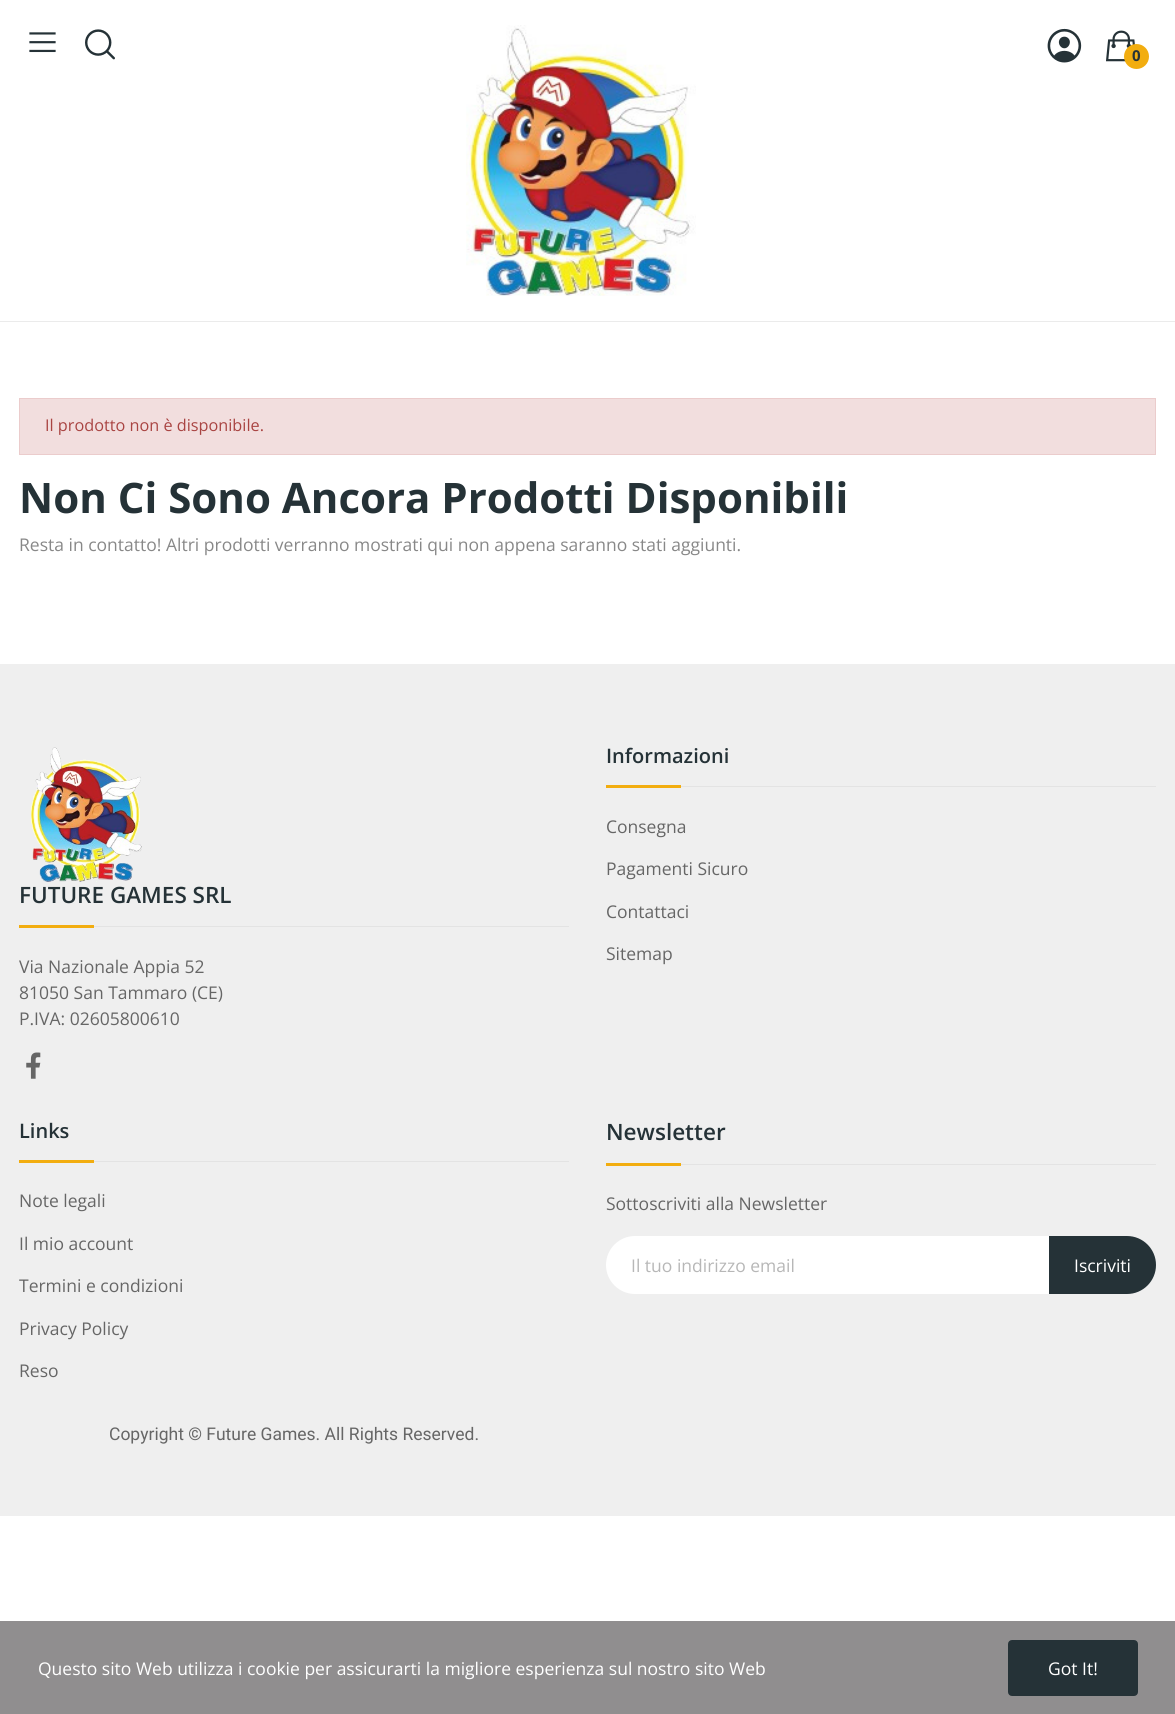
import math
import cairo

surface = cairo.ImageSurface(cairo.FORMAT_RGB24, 1175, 1714)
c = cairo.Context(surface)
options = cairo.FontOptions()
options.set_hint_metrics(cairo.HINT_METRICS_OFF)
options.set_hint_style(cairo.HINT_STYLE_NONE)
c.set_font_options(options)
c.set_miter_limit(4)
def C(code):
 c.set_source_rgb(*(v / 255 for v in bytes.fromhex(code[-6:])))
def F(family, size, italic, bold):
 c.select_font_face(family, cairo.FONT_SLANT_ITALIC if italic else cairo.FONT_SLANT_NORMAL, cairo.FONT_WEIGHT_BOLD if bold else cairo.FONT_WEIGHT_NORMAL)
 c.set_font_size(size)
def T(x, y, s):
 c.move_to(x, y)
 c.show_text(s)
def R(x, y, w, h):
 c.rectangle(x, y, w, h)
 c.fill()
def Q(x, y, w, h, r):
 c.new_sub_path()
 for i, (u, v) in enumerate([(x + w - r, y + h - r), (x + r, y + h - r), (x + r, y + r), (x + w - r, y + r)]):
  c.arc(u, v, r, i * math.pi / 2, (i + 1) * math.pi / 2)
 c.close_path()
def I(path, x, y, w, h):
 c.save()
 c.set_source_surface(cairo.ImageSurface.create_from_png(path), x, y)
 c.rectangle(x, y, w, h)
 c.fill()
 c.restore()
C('ffffff')
c.paint()
C('ebebeb')
R(0,321,1175,1)
I('1.png',29,32,27,21)
I('2.png',85,29,30,31)
I('3.png',466,25,230,271)
I('4.png',1047,28,35,35)
I('5.png',1106,30,29,32)
C('f2ad0f')
c.arc(1136.5,56.5,12.5,0,2 * math.pi)
c.fill()
F('Open Sans',15,0,1)
C('253237')
T(1132,61,'0')
C('f2dede')
c.rectangle(19.5,398.5,1136,56)
c.fill_preserve()
C('ebcccc')
c.set_line_width(1)
c.stroke()
F('Open Sans',16.25,0,0)
C('a94442')
T(45,431,'Il prodotto non è disponibile.')
F('Open Sans',42,0,1)
C('253237')
T(19,513,'Non Ci Sono Ancora Prodotti Disponibili')
F('Open Sans',17.5,0,0)
C('888888')
T(19,551,'Resta in contatto! Altri prodotti verranno mostrati qui non appena saranno stati aggiunti.')
C('efefef')
R(0,664,1175,852)
I('6.png',31,747,111,135)
C('e3e3e3')
R(94,926,475,1)
F('Open Sans SemiBold',22.5,0,0)
C('253237')
T(19,903,'FUTURE GAMES SRL')
C('f2ad0f')
R(19,925,75,3)
F('Open Sans',17.5,0,0)
C('666666')
T(19,973,'Via Nazionale Appia 52')
T(19,999,'81050 San Tammaro (CE)')
T(19,1025,'P.IVA: 02605800610')
I('7.png',26,1052,15,27)
C('e3e3e3')
R(681,786,475,1)
F('Open Sans SemiBold',20,0,0)
C('253237')
T(606,763,'Informazioni')
C('f2ad0f')
R(606,785,75,3)
F('Open Sans',17.5,0,0)
C('666666')
T(606,833,'Consegna')
T(606,875,'Pagamenti Sicuro')
T(606,918,'Contattaci')
T(606,960,'Sitemap')
C('e3e3e3')
R(94,1161,475,1)
F('Open Sans SemiBold',20,0,0)
C('253237')
T(19,1138,'Links')
C('f2ad0f')
R(19,1160,75,3)
F('Open Sans',17.5,0,0)
C('666666')
T(19,1207,'Note legali')
T(19,1250,'Il mio account')
T(19,1292,'Termini e condizioni')
T(19,1335,'Privacy Policy')
T(19,1377,'Reso')
C('e3e3e3')
R(681,1164,475,1)
F('Open Sans SemiBold',22.5,0,0)
C('253237')
T(606,1140,'Newsletter')
C('f2ad0f')
R(606,1163,75,3)
F('Open Sans',17.5,0,0)
C('666666')
T(606,1210,'Sottoscriviti alla Newsletter')
C('ffffff')
c.new_path()
c.move_to(635,1236)
c.line_to(1049,1236)
c.line_to(1049,1294)
c.line_to(635,1294)
c.curve_to(619,1294,606,1281,606,1265)
c.curve_to(606,1249,619,1236,635,1236)
c.close_path()
c.fill()
C('b7b7b7')
T(631,1272,'Il tuo indirizzo email')
C('253237')
c.new_path()
c.move_to(1049,1236)
c.line_to(1127,1236)
c.curve_to(1143,1236,1156,1249,1156,1265)
c.curve_to(1156,1281,1143,1294,1127,1294)
c.line_to(1049,1294)
c.close_path()
c.fill()
C('ffffff')
T(1074,1272,'Iscriviti')
F('Roboto',17.5,0,0)
C('666666')
T(109,1440,'Copyright © Future Games. All Rights Reserved.')
C('908e8f')
R(0,1621,1175,93)
F('Open Sans',17.5,0,0)
C('ffffff')
T(38,1675,'Questo sito Web utilizza i cookie per assicurarti la migliore esperienza sul nostro sito Web')
C('253237')
Q(1009.5,1641.5,127,53,2.5)
c.fill_preserve()
c.set_line_width(3)
c.stroke()
C('ffffff')
T(1048,1675,'Got It!')
surface.write_to_png('o.png')
